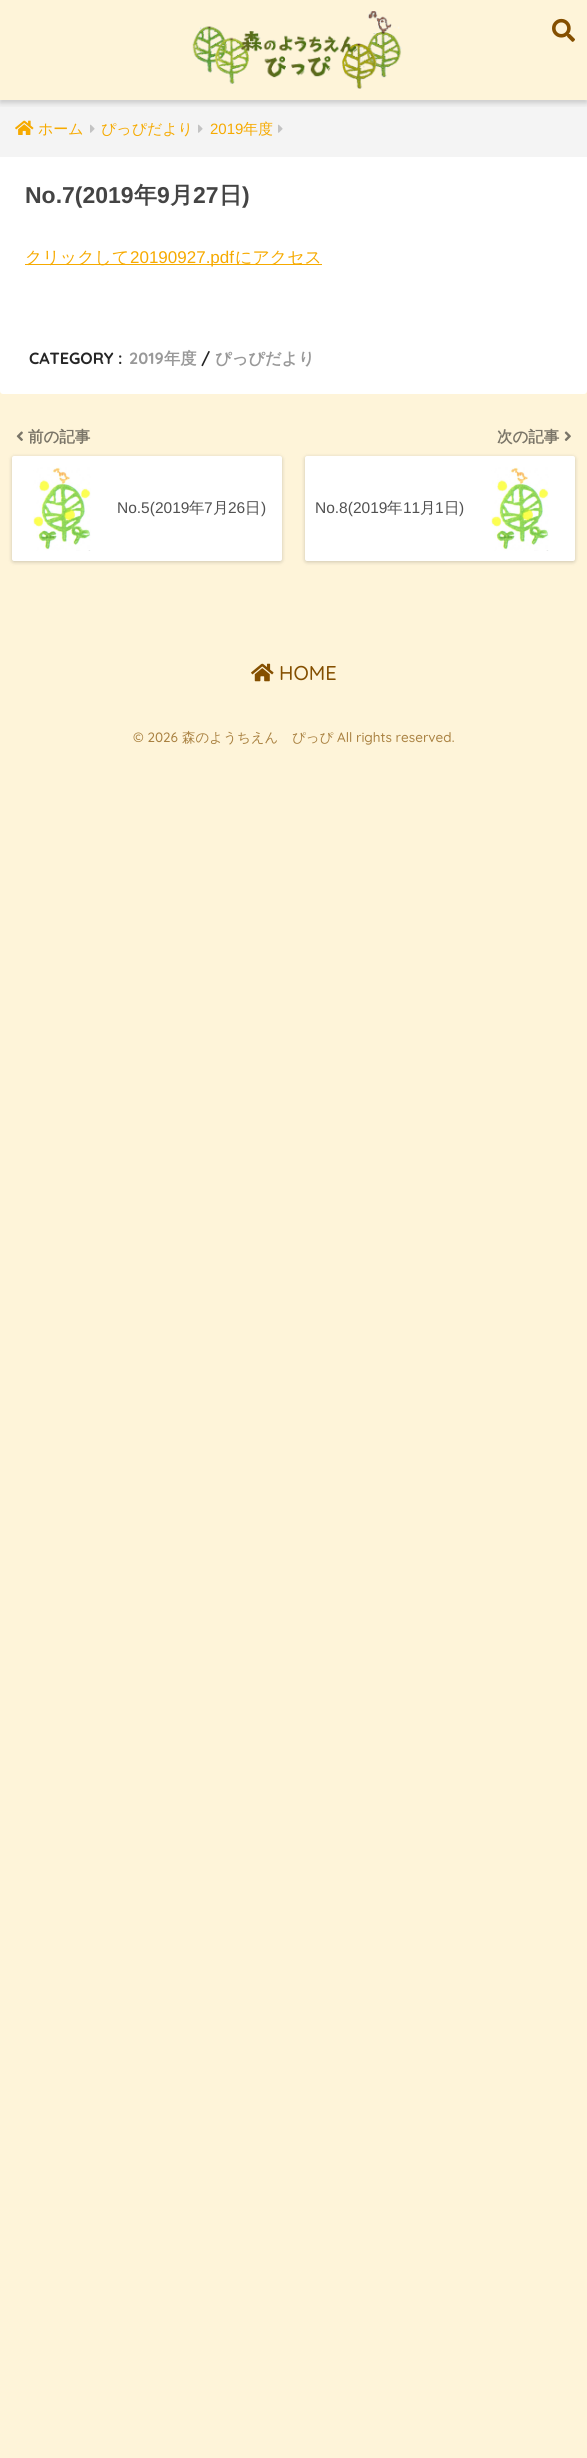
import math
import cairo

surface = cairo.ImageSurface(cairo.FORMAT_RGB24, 587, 2458)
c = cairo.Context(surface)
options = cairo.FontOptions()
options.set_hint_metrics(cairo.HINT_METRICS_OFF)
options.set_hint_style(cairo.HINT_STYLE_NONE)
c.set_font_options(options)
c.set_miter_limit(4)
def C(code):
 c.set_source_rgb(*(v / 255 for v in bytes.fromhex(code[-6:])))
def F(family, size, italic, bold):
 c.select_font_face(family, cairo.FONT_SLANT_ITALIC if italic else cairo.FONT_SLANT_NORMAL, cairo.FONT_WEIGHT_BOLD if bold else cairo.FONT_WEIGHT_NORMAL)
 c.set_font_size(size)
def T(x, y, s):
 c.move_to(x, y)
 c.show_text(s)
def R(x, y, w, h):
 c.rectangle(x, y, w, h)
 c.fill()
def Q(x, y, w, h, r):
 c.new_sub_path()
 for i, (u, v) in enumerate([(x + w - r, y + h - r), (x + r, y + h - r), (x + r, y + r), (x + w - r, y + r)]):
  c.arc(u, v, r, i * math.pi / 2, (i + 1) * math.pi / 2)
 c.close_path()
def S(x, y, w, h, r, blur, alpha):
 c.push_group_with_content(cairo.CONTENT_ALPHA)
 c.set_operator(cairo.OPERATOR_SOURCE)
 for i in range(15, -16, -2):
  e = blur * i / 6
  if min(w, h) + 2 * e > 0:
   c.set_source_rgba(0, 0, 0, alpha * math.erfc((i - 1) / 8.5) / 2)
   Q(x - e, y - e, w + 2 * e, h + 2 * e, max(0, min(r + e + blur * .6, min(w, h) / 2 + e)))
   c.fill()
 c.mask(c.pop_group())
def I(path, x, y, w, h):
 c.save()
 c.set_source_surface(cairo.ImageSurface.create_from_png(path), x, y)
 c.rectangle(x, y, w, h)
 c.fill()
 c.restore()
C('fef4d9')
c.paint()
C('ffffff')
Q(0,100,587,294,3)
c.fill()
C('f4f4f4')
R(0,100,587,57)
c.save()
c.rectangle(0,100,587,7)
c.clip()
C('000000')
S(0,3,587,100,0,3,.18)
c.restore()
I('1.png',192,11,210,78)
I('2.png',552,18,23,24)
I('3.png',15,120,19,15)
F('WenQuanYi Zen Hei Medium',15,0,0)
C('f6aa00')
T(38,134,'ホーム')
I('4.png',90,124,5,9)
T(101,134,'ぴっぴだより')
I('4.png',198,124,5,9)
F('Liberation Sans',15,0,0)
T(210,134,'2019')
F('WenQuanYi Zen Hei Medium',15,0,0)
T(243,134,'年度')
I('4.png',278,124,5,9)
F('Liberation Sans',23,0,1)
C('444444')
T(25,203,'No.7(2019')
F('WenQuanYi Zen Hei',23,0,1)
T(134,203,'年')
F('Liberation Sans',23,0,1)
T(157,203,'9')
F('WenQuanYi Zen Hei',23,0,1)
T(170,203,'月')
F('Liberation Sans',23,0,1)
T(193,203,'27')
F('WenQuanYi Zen Hei',23,0,1)
T(219,203,'日')
F('Liberation Sans',23,0,1)
T(242,203,')')
C('f6aa00')
R(25,264,297,1)
F('WenQuanYi Zen Hei Medium',17,0,0)
T(25,263,'クリックして')
F('Liberation Sans',17,0,0)
T(130,263,'20190927.pdf')
F('WenQuanYi Zen Hei Medium',17,0,0)
T(235,263,'にアクセス')
F('Quicksand',16.25,0,1)
C('252525')
T(29,364,'CATEGORY :')
C('999999')
T(129,364,'2019')
F('WenQuanYi Zen Hei',16.25,0,1)
T(164,364,'年度')
F('Quicksand',16.25,0,1)
C('252525')
T(201,364,'/')
F('WenQuanYi Zen Hei',16.25,0,1)
C('999999')
T(215,364,'ぴっぴだより')
I('5.png',16,431,7,10)
F('WenQuanYi Zen Hei',15.5,0,1)
C('7a7568')
T(28,442,'前の記事')
C('000000')
S(12,457,270,105,2,2,.2)
C('ffffff')
Q(12,456,270,105,2)
c.fill()
I('6.png',33,467,58,84)
F('Liberation Sans',15.5,0,0)
C('505050')
T(117,513,'No.5(2019')
F('WenQuanYi Zen Hei Medium',15.5,0,0)
T(189,513,'年')
F('Liberation Sans',15.5,0,0)
T(204,513,'7')
F('WenQuanYi Zen Hei Medium',15.5,0,0)
T(213,513,'月')
F('Liberation Sans',15.5,0,0)
T(228,513,'26')
F('WenQuanYi Zen Hei Medium',15.5,0,0)
T(245,513,'日')
F('Liberation Sans',15.5,0,0)
T(261,513,')')
F('WenQuanYi Zen Hei',15.5,0,1)
C('7a7568')
T(497,442,'次の記事')
I('7.png',564,431,7,10)
C('000000')
S(305,457,270,105,2,2,.2)
C('ffffff')
Q(305,456,270,105,2)
c.fill()
F('Liberation Sans',15.5,0,0)
C('505050')
T(315,513,'No.8(2019')
F('WenQuanYi Zen Hei Medium',15.5,0,0)
T(387,513,'年')
F('Liberation Sans',15.5,0,0)
T(403,513,'11')
F('WenQuanYi Zen Hei Medium',15.5,0,0)
T(420,513,'月')
F('Liberation Sans',15.5,0,0)
T(435,513,'1')
F('WenQuanYi Zen Hei Medium',15.5,0,0)
T(444,513,'日')
F('Liberation Sans',15.5,0,0)
T(459,513,')')
I('6.png',491,467,58,84)
I('8.png',251,663,23,19)
F('Quicksand Medium',20,0,0)
C('844f00')
T(279,680,'HOME')
F('Quicksand Medium',13.5,0,0)
C('a98141')
T(133,742,'© 2026')
F('WenQuanYi Zen Hei Medium',13.5,0,0)
T(182,742,'森のようちえん　ぴっぴ')
F('Quicksand Medium',13.5,0,0)
T(337,742,'All rights reserved.')
surface.write_to_png('o.png')
